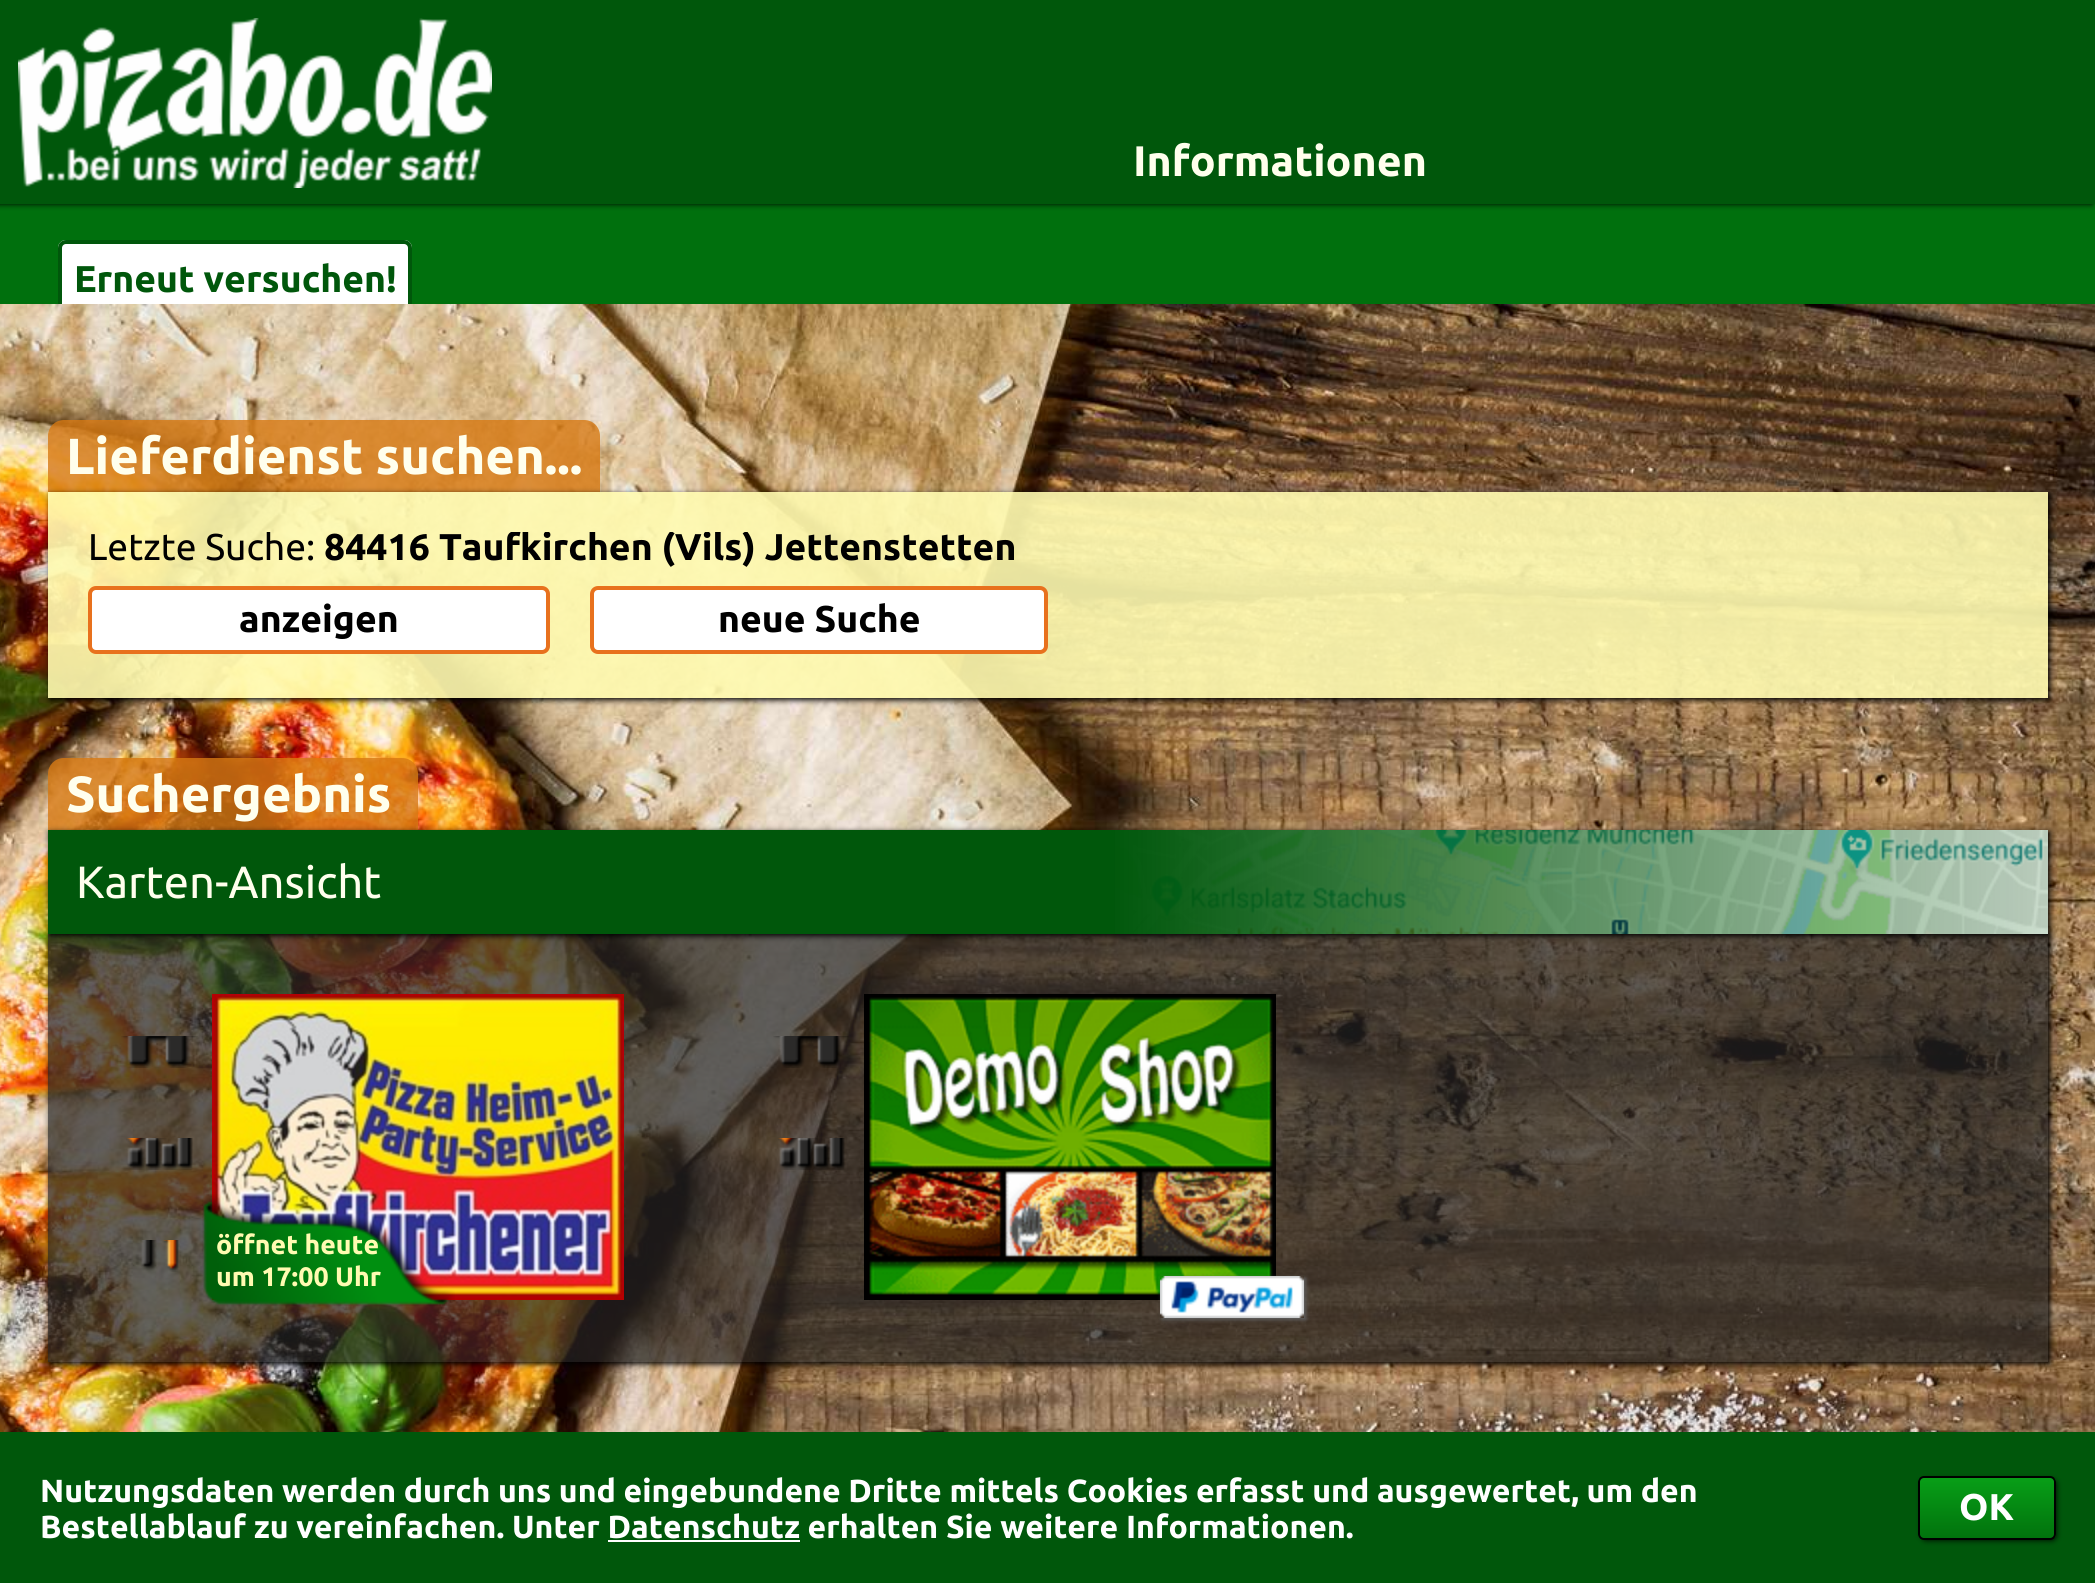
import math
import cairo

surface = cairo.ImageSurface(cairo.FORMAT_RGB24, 2095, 1583)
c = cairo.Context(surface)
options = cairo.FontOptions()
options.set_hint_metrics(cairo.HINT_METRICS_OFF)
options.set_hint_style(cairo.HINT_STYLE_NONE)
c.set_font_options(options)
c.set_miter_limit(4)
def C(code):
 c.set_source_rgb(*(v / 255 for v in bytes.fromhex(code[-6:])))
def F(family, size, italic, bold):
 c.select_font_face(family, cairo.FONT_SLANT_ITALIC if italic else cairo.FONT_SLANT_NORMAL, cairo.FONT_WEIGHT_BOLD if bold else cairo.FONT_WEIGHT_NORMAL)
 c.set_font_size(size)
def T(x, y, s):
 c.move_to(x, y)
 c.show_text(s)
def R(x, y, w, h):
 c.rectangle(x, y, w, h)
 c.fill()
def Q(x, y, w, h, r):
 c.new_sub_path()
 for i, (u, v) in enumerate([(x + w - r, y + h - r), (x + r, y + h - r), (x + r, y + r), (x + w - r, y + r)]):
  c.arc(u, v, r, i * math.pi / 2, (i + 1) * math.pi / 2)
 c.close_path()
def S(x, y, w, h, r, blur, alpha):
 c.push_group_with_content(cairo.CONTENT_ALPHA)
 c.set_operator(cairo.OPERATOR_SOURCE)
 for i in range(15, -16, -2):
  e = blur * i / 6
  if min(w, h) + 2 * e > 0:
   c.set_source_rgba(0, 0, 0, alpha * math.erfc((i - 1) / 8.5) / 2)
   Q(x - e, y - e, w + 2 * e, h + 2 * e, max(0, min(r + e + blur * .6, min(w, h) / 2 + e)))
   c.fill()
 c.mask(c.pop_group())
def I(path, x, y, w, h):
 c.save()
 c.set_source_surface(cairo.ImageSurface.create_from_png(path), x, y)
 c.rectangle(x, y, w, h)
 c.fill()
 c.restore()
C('ffffff')
c.paint()
C('00700d')
R(0,204,2095,100)
C('000000')
S(-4,0,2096,204,0,3,1)
C('00570b')
R(0,0,2095,204)
I('1.png',18,18,474,170)
F('Ubuntu',42.75,0,1)
C('ffffed')
T(1133,176,'Informationen')
C('ffffff')
c.new_path()
c.move_to(66,240)
c.line_to(404,240)
c.curve_to(408.5,240,412,243.5,412,248)
c.line_to(412,304)
c.line_to(58,304)
c.line_to(58,248)
c.curve_to(58,243.5,61.5,240,66,240)
c.close_path()
c.fill()
I('12.png',0,304,2095,1128)
c.save()
c.rectangle(0,204,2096,100)
c.clip()
Q(60,242,350,74,6)
C('00570b')
c.set_line_width(4)
c.stroke()
c.restore()
F('Ubuntu',37.3,0,1)
C('00570b')
T(74,292,'Erneut versuchen!')
c.set_source_rgba(0.843,0.478,0.075,0.8)
c.new_path()
c.move_to(64,420)
c.line_to(584,420)
c.curve_to(593,420,600,427,600,436)
c.line_to(600,492)
c.line_to(48,492)
c.line_to(48,436)
c.curve_to(48,427,55,420,64,420)
c.close_path()
c.fill()
F('Ubuntu',50.75,0,1)
C('ffffed')
T(66,474,'Lieferdienst suchen...')
c.save()
c.set_fill_rule(cairo.FILL_RULE_EVEN_ODD)
c.new_path()
c.move_to(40,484)
c.line_to(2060,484)
c.line_to(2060,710)
c.line_to(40,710)
c.close_path()
c.move_to(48,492)
c.line_to(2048,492)
c.line_to(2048,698)
c.line_to(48,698)
c.close_path()
c.clip()
C('000000')
S(50,494,2000,206,0,3,1)
c.restore()
c.set_source_rgba(1,0.984,0.694,0.9)
R(48,492,2000,206)
c.save()
c.rectangle(88,532,1920,126)
c.clip()
F('Ubuntu',37.3,0,0)
C('000000')
T(88,560,'Letzte Suche:')
F('Ubuntu',37.3,0,1)
T(324,560,'84416 Taufkirchen (Vils) Jettenstetten')
c.restore()
C('ffffff')
Q(90,588,458,64,6)
c.fill_preserve()
C('e8711d')
c.set_line_width(4)
c.stroke()
F('Ubuntu',37.3,0,1)
C('000000')
T(239,632,'anzeigen')
C('ffffff')
Q(592,588,454,64,6)
c.fill_preserve()
C('e8711d')
c.stroke()
C('000000')
T(718,632,'neue Suche')
c.set_source_rgba(0.843,0.478,0.075,0.8)
c.new_path()
c.move_to(64,758)
c.line_to(402,758)
c.curve_to(411,758,418,765,418,774)
c.line_to(418,830)
c.line_to(48,830)
c.line_to(48,774)
c.curve_to(48,765,55,758,64,758)
c.close_path()
c.fill()
F('Ubuntu',50.75,0,1)
C('ffffed')
T(66,812,'Suchergebnis')
c.save()
c.set_fill_rule(cairo.FILL_RULE_EVEN_ODD)
c.new_path()
c.move_to(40,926)
c.line_to(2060,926)
c.line_to(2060,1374)
c.line_to(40,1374)
c.close_path()
c.move_to(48,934)
c.line_to(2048,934)
c.line_to(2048,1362)
c.line_to(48,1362)
c.close_path()
c.clip()
C('000000')
S(50,936,2000,428,0,3,1)
c.restore()
c.set_source_rgba(0.137,0.137,0.137,0.7)
R(48,934,2000,428)
C('000000')
S(50,832,2000,104,0,3,1)
I('2.png',1115,830,933,104)
gradient = cairo.LinearGradient(48,882,2048,882)
gradient.add_color_stop_rgba(.53,0,0.341,0.043,1)
gradient.add_color_stop_rgba(1,0,0.341,0.043,.2)
c.set_source(gradient)
R(48,830,2000,104)
F('Ubuntu',45.25,0,0)
C('ffffed')
T(76,898,'Karten-Ansicht')
I('3.png',121,1036,77,32)
I('4.png',212,994,412,306)
I('5.png',126,1138,67,32)
I('6.png',141,1240,38,32)
I('7.png',202,1194,253,112)
F('Ubuntu',26.75,0,1)
C('fffbb1')
T(216,1254,'öffnet heute')
T(216,1286,'um 17:00 Uhr')
I('8.png',773,1036,76,32)
I('9.png',864,994,412,306)
I('10.png',778,1138,67,32)
c.save()
c.set_fill_rule(cairo.FILL_RULE_EVEN_ODD)
c.new_path()
c.move_to(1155,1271)
c.line_to(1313,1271)
c.line_to(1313,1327)
c.line_to(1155,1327)
c.close_path()
c.move_to(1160,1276)
c.line_to(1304,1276)
c.line_to(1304,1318)
c.line_to(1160,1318)
c.close_path()
c.clip()
C('606060')
S(1162,1278,144,42,0,2,1)
c.restore()
I('11.png',1160,1276,144,42)
C('00570b')
R(0,1432,2095,151)
F('Ubuntu',32,0,1)
C('ffffff')
T(40,1502,'Nutzungsdaten werden durch uns und eingebundene Dritte mittels Cookies erfasst und ausgewertet, um den')
T(40,1538,'Bestellablauf zu vereinfachen. Unter Datenschutz erhalten Sie weitere Informationen.')
R(608,1540,192,2)
C('000000')
S(1922,1480,134,60,4,3,1)
c.save()
Q(1918,1476,138,64,6)
c.clip()
gradient = cairo.LinearGradient(1987,1478,1987,1538)
gradient.add_color_stop_rgba(0,0.031,0.62,0.09,1)
gradient.add_color_stop_rgba(1,0.004,0.451,0.051,1)
c.set_source(gradient)
R(1918,1478,138,60)
c.restore()
Q(1919,1477,136,62,5)
C('000000')
c.set_line_width(2)
c.stroke()
F('Ubuntu',37.3,0,1)
C('ffffff')
T(1959,1520,'OK')
surface.write_to_png('o.png')
